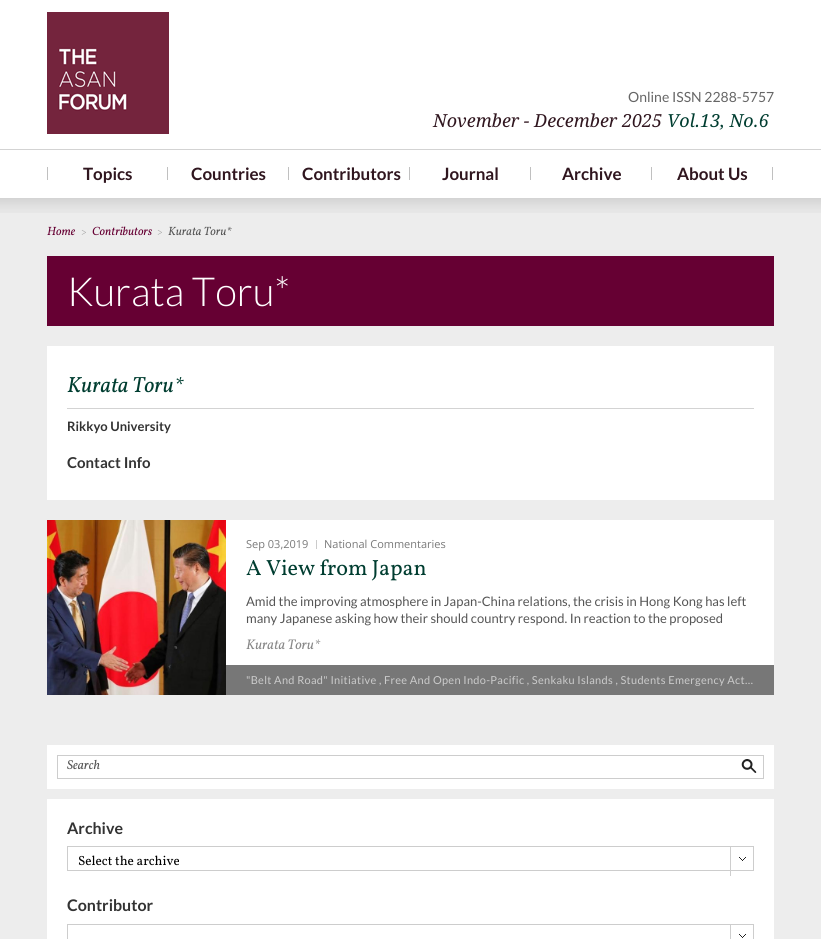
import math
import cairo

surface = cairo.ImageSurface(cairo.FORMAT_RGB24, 821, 939)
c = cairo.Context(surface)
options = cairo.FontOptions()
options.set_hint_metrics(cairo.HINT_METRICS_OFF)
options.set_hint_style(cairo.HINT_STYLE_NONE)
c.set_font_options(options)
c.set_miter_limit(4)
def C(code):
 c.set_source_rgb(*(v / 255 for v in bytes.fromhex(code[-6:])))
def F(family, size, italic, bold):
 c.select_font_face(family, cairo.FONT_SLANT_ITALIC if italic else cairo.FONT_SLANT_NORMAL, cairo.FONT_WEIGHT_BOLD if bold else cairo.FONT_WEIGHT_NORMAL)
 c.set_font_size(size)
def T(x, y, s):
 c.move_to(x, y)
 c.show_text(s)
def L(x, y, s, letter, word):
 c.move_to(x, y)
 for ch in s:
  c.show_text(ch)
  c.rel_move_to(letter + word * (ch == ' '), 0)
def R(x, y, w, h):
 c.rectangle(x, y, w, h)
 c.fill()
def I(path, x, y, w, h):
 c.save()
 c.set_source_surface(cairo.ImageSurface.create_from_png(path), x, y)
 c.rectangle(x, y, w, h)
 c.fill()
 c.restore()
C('ededed')
c.paint()
I('1.png',0,198,821,15)
C('ffffff')
R(0,0,821,198)
I('2.png',47,12,122,122)
F('Lato',14,0,0)
C('666666')
T(628,102,'Online ISSN 2288-5757')
F('Droid Serif',18,1,0)
C('30161f')
T(433,127,'November - December 2025')
C('003d30')
T(667,127,'Vol.13, No.6')
C('d3d3d3')
R(0,149,821,1)
C('c0c0c0')
R(167,167,1,13)
R(47,167,1,13)
F('Lato',17,0,1)
C('30161f')
T(83,180,'Topics')
C('c0c0c0')
R(288,167,1,13)
C('30161f')
T(191,180,'Countries')
C('c0c0c0')
R(409,167,1,13)
C('30161f')
T(302,180,'Contributors')
C('c0c0c0')
R(530,167,1,13)
C('30161f')
T(442,180,'Journal')
C('c0c0c0')
R(651,167,1,13)
C('30161f')
T(562,180,'Archive')
C('c0c0c0')
R(772,167,1,13)
C('30161f')
T(677,180,'About Us')
F('Vollkorn',12,1,0)
C('660033')
T(47,235,'Home')
F('Vollkorn',10,0,0)
C('999999')
T(81,235,'>')
F('Vollkorn',12,1,0)
C('660033')
T(92,235,'Contributors')
F('Vollkorn',10,0,0)
C('999999')
T(157,235,'>')
F('Vollkorn',12,1,0)
C('555555')
T(168,235,'Kurata Toru*')
C('660033')
R(47,256,727,70)
F('Lato Light',40,0,0)
C('ffffff')
T(67,306,'Kurata Toru*')
R(47,346,727,154)
C('d3d3d3')
R(67,408,687,1)
F('Vollkorn',22,1,0)
C('003d30')
T(67,392,'Kurata Toru*')
F('Lato',13,0,1)
C('333333')
T(67,431,'Rikkyo University')
F('Lato',15,0,1)
T(67,468,'Contact Info')
I('3.png',47,520,179,175)
C('ffffff')
R(226,520,548,145)
F('Open Sans',11,0,0)
C('797979')
T(246,548,'Sep 03,2019')
C('cbcbcb')
R(316,540,1,9)
C('797979')
T(324,548,'National Commentaries')
F('Vollkorn',22,0,0)
C('003d30')
T(246,575,'A View from Japan')
F('Lato',13,0,0)
C('555555')
T(246,606,'Amid the improving atmosphere in Japan-China relations, the crisis in Hong Kong has left')
T(246,623,'many Japanese asking how their should country respond. In reaction to the proposed')
F('Vollkorn',14,1,0)
C('888888')
T(246,649,'Kurata Toru*')
C('777777')
R(226,665,548,30)
F('Lato',11,0,0)
C('cbcbcb')
L(246,684,'"Belt And Road" Initiative , Free And Open Indo-Pacific , Senkaku Islands , Students Emergency Act…',.3,0)
C('ffffff')
R(47,745,727,44)
c.rectangle(57.5,755.5,706,23)
C('cdcdcd')
c.set_line_width(1)
c.stroke()
F('Vollkorn',13,1,0)
C('555555')
T(67,769,'Search')
I('4.png',741,759,16,14)
C('ffffff')
R(47,799,727,140)
F('Lato',16,0,1)
C('333333')
T(67,834,'Archive')
c.rectangle(67.5,846.5,686,24)
C('cdcdcd')
c.stroke()
I('5.png',739,857,7,4)
C('cecece')
R(730,847,1,29)
F('Vollkorn',13.25,0,0)
C('000000')
T(78,865,'Select the archive')
F('Lato',16,0,1)
C('333333')
T(67,911,'Contributor')
c.rectangle(67.5,924.5,686,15)
C('cdcdcd')
c.stroke()
I('5.png',739,934,7,4)
C('cecece')
R(730,925,1,14)
surface.write_to_png('o.png')
